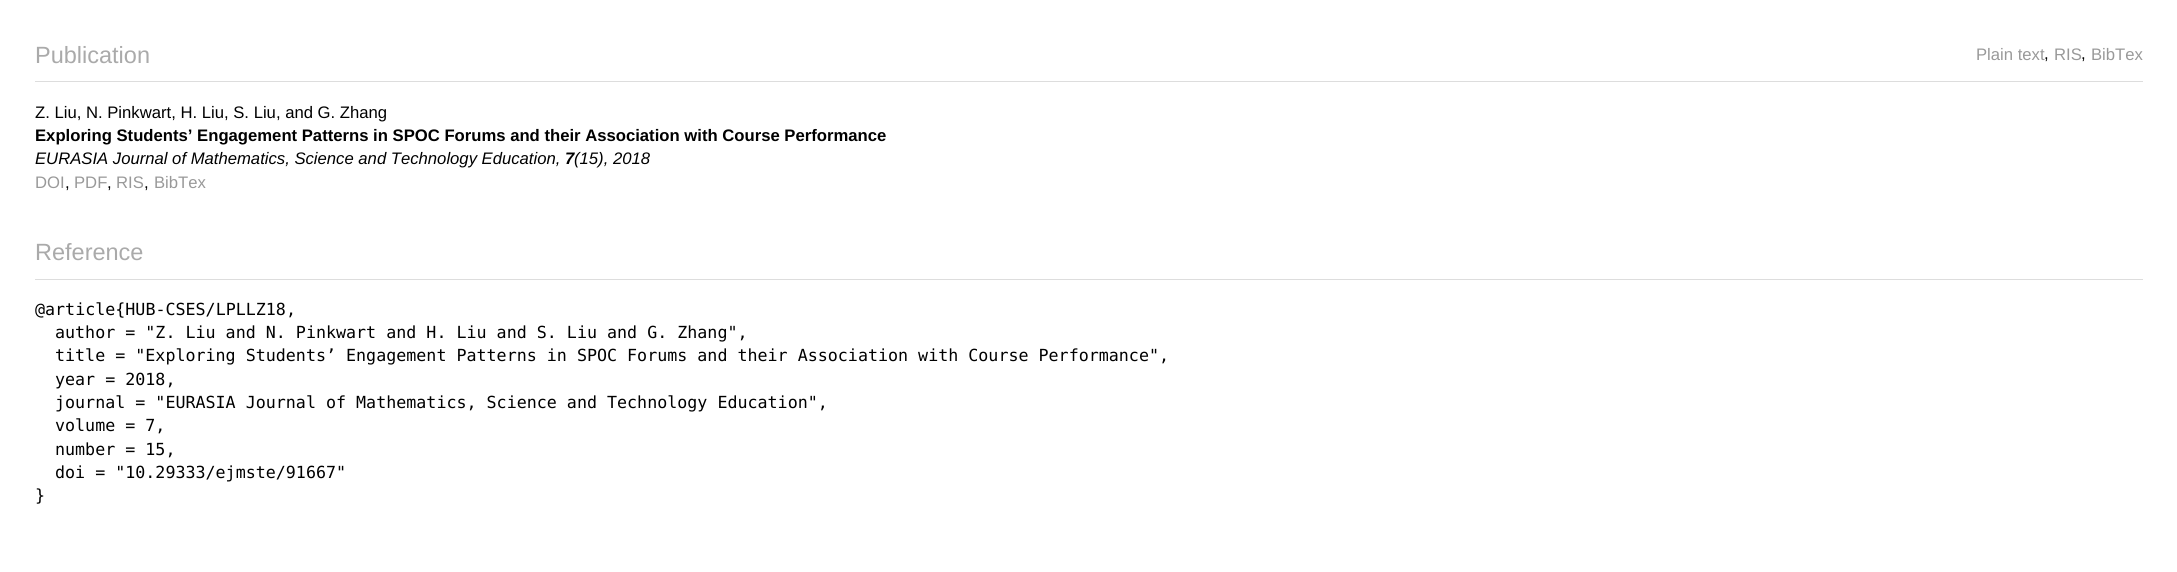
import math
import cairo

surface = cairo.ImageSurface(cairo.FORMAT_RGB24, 2177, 572)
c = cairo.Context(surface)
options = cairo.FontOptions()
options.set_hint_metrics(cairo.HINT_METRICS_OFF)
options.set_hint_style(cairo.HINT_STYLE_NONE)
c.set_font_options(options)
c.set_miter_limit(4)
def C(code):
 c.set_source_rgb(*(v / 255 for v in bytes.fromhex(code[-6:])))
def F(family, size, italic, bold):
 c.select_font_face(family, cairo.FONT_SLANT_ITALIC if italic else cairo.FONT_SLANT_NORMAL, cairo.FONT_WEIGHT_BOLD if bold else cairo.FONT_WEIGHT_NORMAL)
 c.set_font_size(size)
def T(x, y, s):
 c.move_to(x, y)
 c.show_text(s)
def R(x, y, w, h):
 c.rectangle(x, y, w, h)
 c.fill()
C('ffffff')
c.paint()
F('Liberation Sans',23.5,0,0)
C('aaaaaa')
T(35,63,'Publication')
F('Liberation Sans',16.67,0,0)
C('999999')
T(1976,60,'Plain text')
C('000000')
T(2044,59,',')
C('999999')
T(2054,60,'RIS')
C('000000')
T(2081,59,',')
C('999999')
T(2091,60,'BibTex')
C('dddddd')
R(35,81,2108,1)
C('000000')
T(35,118,'Z. Liu, N. Pinkwart, H. Liu, S. Liu, and G. Zhang')
F('Liberation Sans',16.67,0,1)
T(35,141,'Exploring Students’ Engagement Patterns in SPOC Forums and their Association with Course Performance')
F('Liberation Sans',16.67,1,0)
T(35,164,'EURASIA Journal of Mathematics, Science and Technology Education,')
F('Liberation Sans',16.67,1,1)
T(565,164,'7')
F('Liberation Sans',16.67,1,0)
T(574,164,'(15), 2018')
F('Liberation Sans',16.67,0,0)
C('999999')
T(35,188,'DOI')
C('000000')
T(65,188,',')
C('999999')
T(74,188,'PDF')
C('000000')
T(107,188,',')
C('999999')
T(116,188,'RIS')
C('000000')
T(144,188,',')
C('999999')
T(154,188,'BibTex')
F('Liberation Sans',23.5,0,0)
C('aaaaaa')
T(35,260,'Reference')
C('dddddd')
R(35,279,2108,1)
F('DejaVu Sans Mono',16.67,0,0)
C('000000')
T(35,315,'@article{HUB-CSES/LPLLZ18,')
T(55,338,'author = "Z. Liu and N. Pinkwart and H. Liu and S. Liu and G. Zhang",')
T(55,361,'title = "Exploring Students’ Engagement Patterns in SPOC Forums and their Association with Course Performance",')
T(55,385,'year = 2018,')
T(55,408,'journal = "EURASIA Journal of Mathematics, Science and Technology Education",')
T(55,431,'volume = 7,')
T(55,455,'number = 15,')
T(55,478,'doi = "10.29333/ejmste/91667"')
T(35,501,'}')
surface.write_to_png('o.png')
